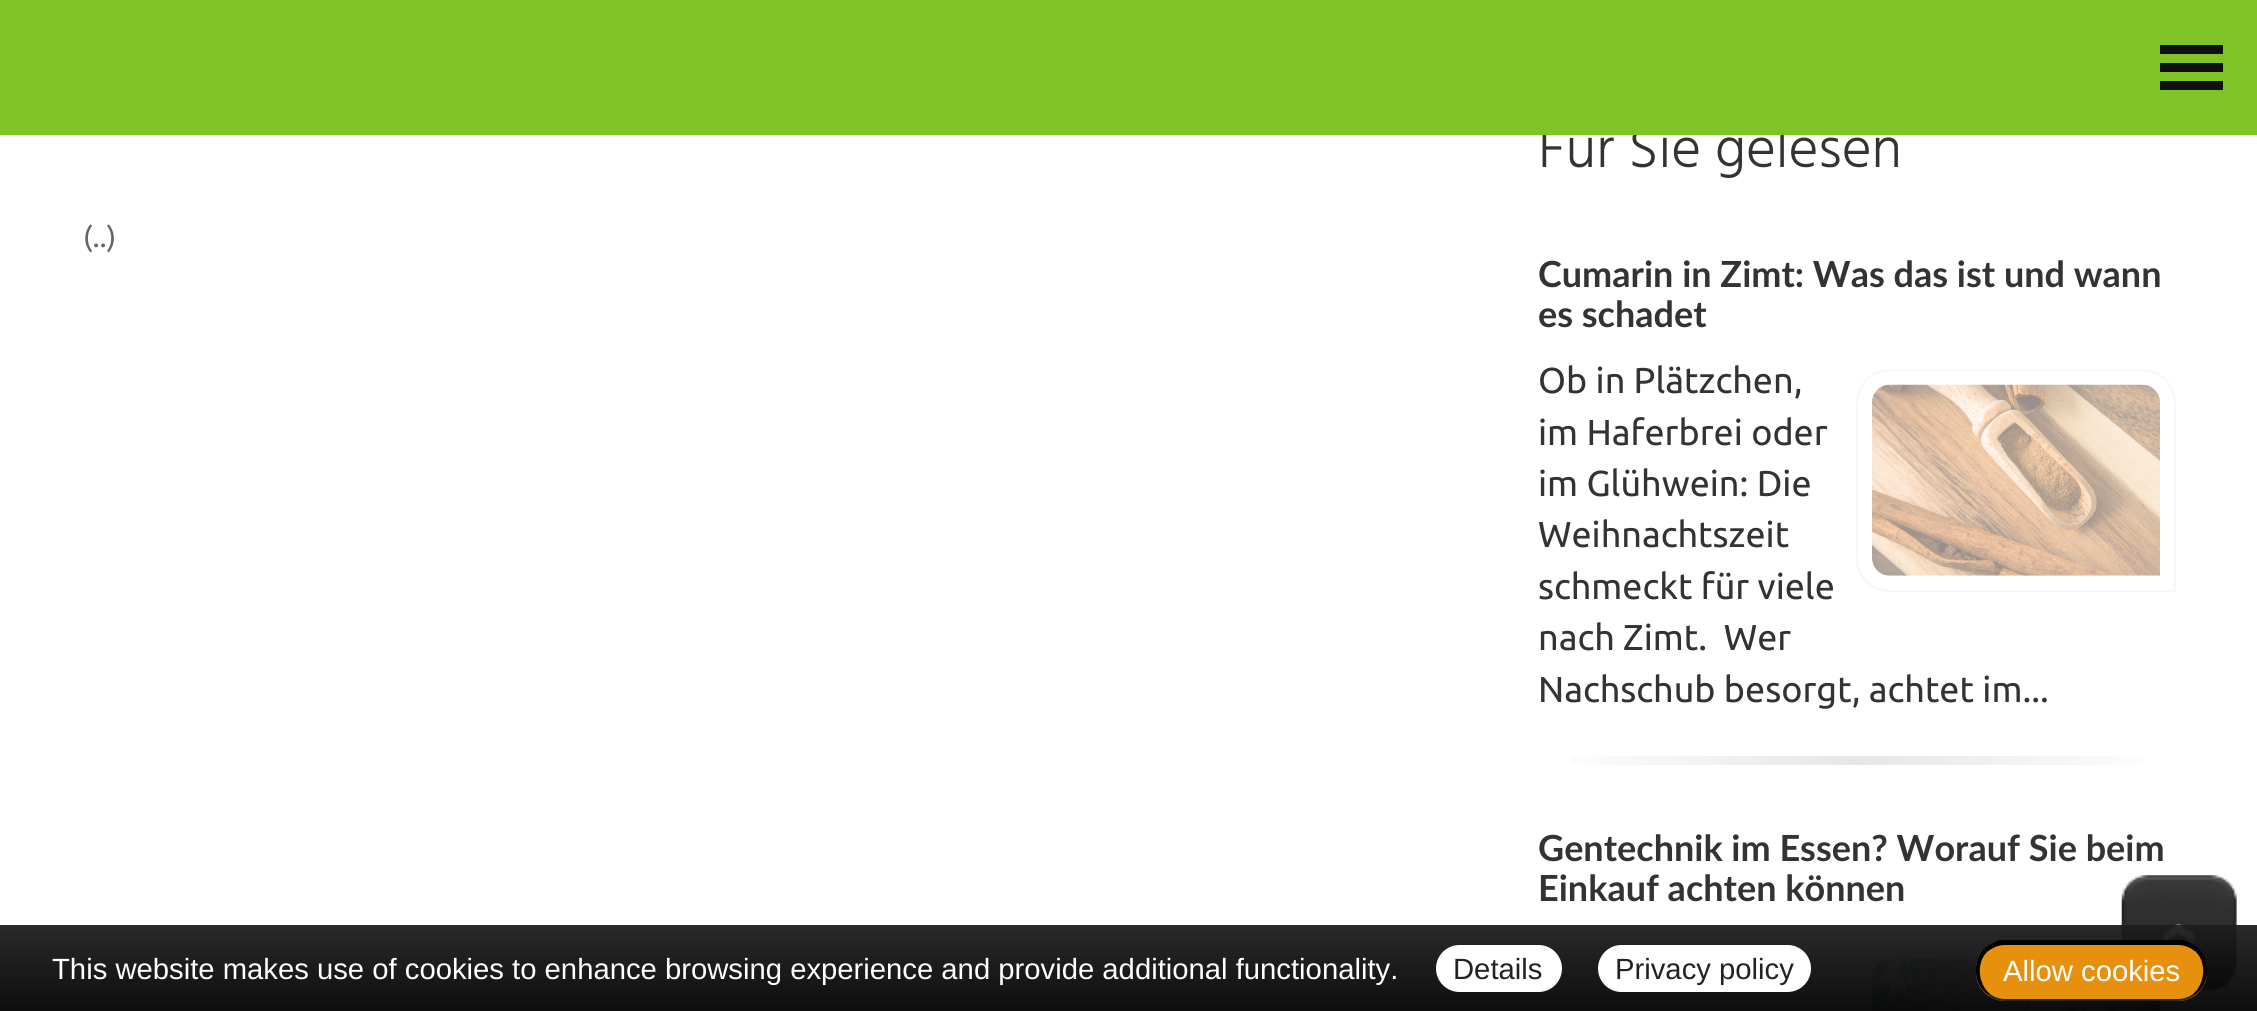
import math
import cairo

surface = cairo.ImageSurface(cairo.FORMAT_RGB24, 2257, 1011)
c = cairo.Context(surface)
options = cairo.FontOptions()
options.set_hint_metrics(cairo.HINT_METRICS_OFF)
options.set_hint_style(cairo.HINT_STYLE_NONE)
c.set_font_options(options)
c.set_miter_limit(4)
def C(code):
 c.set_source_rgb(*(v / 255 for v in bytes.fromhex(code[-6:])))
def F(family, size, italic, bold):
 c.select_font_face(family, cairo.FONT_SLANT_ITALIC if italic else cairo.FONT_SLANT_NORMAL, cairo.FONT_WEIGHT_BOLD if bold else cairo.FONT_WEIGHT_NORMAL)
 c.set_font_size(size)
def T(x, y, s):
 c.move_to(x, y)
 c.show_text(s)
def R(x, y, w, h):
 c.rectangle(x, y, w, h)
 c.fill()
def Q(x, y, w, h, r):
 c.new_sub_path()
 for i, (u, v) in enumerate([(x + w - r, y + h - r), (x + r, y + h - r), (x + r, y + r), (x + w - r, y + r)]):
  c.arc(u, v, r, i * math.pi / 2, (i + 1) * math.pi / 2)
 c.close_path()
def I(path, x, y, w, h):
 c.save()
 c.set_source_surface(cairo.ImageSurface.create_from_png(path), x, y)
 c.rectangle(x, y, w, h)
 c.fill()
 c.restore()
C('ffffff')
c.paint()
F('Hind Light',57.5,0,0)
C('333333')
T(1538,167,'Für Sie gelesen')
C('80c326')
R(0,0,2257,135)
C('111111')
R(2160,45,63,9)
R(2160,63,63,9)
R(2160,81,63,9)
F('Ubuntu',29,0,0)
C('666666')
T(83,247,'(..)')
F('Lato',36,0,1)
C('333333')
T(1538,287,'Cumarin in Zimt: Was das ist und wann')
T(1538,327,'es schadet')
F('Ubuntu',36,0,0)
T(1538,393,'Ob in Plätzchen,')
c.new_path()
c.move_to(1890,370)
c.line_to(2142,370)
c.curve_to(2160,370,2175,385,2175,403)
c.line_to(2175,591)
c.line_to(1890,591)
c.curve_to(1872,591,1857,576,1857,558)
c.line_to(1857,403)
c.curve_to(1857,385,1872,370,1890,370)
c.close_path()
C('f7f7f7')
c.stroke()
I('1.png',1872,384,288,192)
C('333333')
T(1538,445,'im Haferbrei oder')
T(1538,496,'im Glühwein: Die')
T(1538,547,'Weihnachtszeit')
T(1538,599,'schmeckt für viele')
T(1538,650,'nach Zimt.  Wer')
T(1538,702,'Nachschub besorgt, achtet im...')
gradient = cairo.LinearGradient(1539,761,2176,761)
gradient.add_color_stop_rgba(0,1,1,1,1)
gradient.add_color_stop_rgba(.5,0.902,0.902,0.902,1)
gradient.add_color_stop_rgba(1,1,1,1,1)
c.set_source(gradient)
R(1571,756,573,9)
F('Lato',36,0,1)
C('333333')
T(1538,861,'Gentechnik im Essen? Worauf Sie beim')
T(1538,901,'Einkauf achten können')
c.new_path()
c.move_to(1890,944)
c.line_to(2142,944)
c.curve_to(2160,944,2175,959,2175,977)
c.line_to(2175,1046)
c.line_to(1890,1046)
c.curve_to(1872,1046,1857,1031,1857,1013)
c.line_to(1857,977)
c.curve_to(1857,959,1872,944,1890,944)
c.close_path()
C('f7f7f7')
c.stroke()
I('2.png',1872,958,288,53)
I('3.png',2121,875,116,116)
gradient = cairo.LinearGradient(1130,925,1130,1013)
gradient.add_color_stop_rgba(0,0.118,0.118,0.118,.95)
gradient.add_color_stop_rgba(1,0,0,0,.95)
c.set_source(gradient)
R(0,925,2257,86)
F('Liberation Sans',29.25,0,0)
C('ffffff')
T(52,979,'This website makes use of cookies to enhance browsing experience and provide additional functionality.')
Q(1436,945,126,47,23.5)
c.fill()
C('222222')
T(1453,979,'Details')
C('ffffff')
Q(1598,945,213,47,23.5)
c.fill()
C('222222')
T(1615,979,'Privacy policy')
C('e6900e')
Q(1976,941,231,60,29)
c.fill()
C('000000')
c.new_path()
c.move_to(2005,945)
c.curve_to(1998,945,1992,948,1987,952)
c.line_to(1984,949)
c.curve_to(1988,945,1994,942,2000,940)
c.line_to(2183,940)
c.curve_to(2189,942,2195,945,2199,949)
c.line_to(2196,952)
c.curve_to(2191,948,2185,945,2178,945)
c.close_path()
c.fill()
c.new_path()
c.move_to(2199,949)
c.curve_to(2211,962,2210,984,2195,995)
c.line_to(2193,994)
c.curve_to(2205,984,2207,963,2196,952)
c.close_path()
c.fill()
C('222222')
c.new_path()
c.move_to(2195,995)
c.curve_to(2190,999,2184,1001,2178,1001)
c.line_to(2005,1001)
c.curve_to(1998,1001,1992,999,1988,995)
c.line_to(1990,994)
c.curve_to(1994,997,1999,999,2005,999)
c.line_to(2178,999)
c.curve_to(2184,999,2189,997,2193,994)
c.close_path()
c.fill()
C('000000')
c.new_path()
c.move_to(1988,995)
c.curve_to(1973,984,1972,962,1984,949)
c.line_to(1987,952)
c.curve_to(1976,963,1978,984,1990,994)
c.close_path()
c.fill()
C('ffffff')
T(2003,981,'Allow cookies')
surface.write_to_png('o.png')
